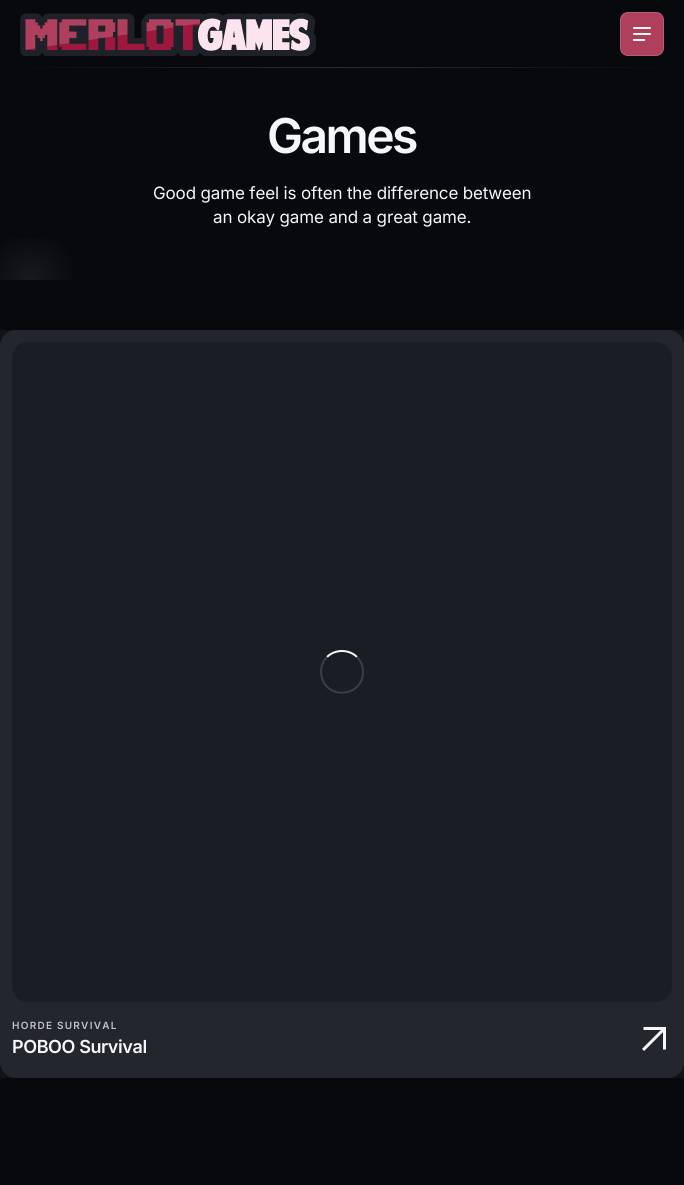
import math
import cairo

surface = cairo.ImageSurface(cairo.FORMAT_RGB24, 684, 1185)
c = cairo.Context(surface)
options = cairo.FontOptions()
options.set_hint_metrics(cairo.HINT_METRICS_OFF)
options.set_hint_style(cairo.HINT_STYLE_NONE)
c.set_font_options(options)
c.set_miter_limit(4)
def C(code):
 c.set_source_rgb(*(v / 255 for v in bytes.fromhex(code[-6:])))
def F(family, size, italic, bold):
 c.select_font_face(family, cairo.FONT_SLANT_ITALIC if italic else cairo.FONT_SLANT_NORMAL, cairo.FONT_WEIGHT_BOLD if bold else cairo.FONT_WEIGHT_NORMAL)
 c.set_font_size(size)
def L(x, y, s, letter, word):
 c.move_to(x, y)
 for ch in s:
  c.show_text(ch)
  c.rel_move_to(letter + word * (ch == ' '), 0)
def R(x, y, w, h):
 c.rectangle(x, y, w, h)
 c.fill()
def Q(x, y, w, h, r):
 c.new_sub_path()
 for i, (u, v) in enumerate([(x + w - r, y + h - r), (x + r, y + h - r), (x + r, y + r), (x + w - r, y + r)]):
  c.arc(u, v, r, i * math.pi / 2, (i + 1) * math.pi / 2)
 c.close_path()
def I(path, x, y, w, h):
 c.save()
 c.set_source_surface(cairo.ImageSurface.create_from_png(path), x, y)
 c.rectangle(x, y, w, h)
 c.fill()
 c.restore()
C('07090d')
c.paint()
I('1.png',20,12,296,44)
C('ae3f5d')
Q(620,12,44,44,8)
c.fill()
Q(620.5,12.5,43,43,7.5)
c.set_source_rgba(0.961,0.969,0.98,0.15)
c.set_line_width(1)
c.stroke()
C('f5f7fa')
Q(633,27,18,2,1)
c.fill()
Q(633,33,18,2,1)
c.fill()
Q(633,39,12,2,.5)
c.fill()
gradient = cairo.LinearGradient(684,68,0,67)
gradient.add_color_stop_rgba(0,0.027,0.035,0.051,1)
gradient.add_color_stop_rgba(.5,0.169,0.176,0.192,1)
gradient.add_color_stop_rgba(1,0.027,0.035,0.051,1)
c.set_source(gradient)
R(24,67,636,1)
F('Inter SemiBold',48,0,0)
C('f5f7fa')
L(267,153,'Games',-2.5,0)
F('Inter',17,0,0)
L(153,199,'Good game feel is often the difference between',-.15,0)
L(213,223,'an okay game and a great game.',-.15,0)
gradient = cairo.RadialGradient(30,280,0,30,280,100)
gradient.add_color_stop_rgba(0,0.094,0.102,0.118,1)
gradient.add_color_stop_rgba(.5,0.027,0.035,0.051,1)
c.set_source(gradient)
R(0,237,73,43)
C('1a1d24')
Q(0,330,684,748,16)
c.fill()
gradient = cairo.RadialGradient(0,0,0,0,0,800)
gradient.add_color_stop_rgba(0,0.961,0.969,0.98,.19)
gradient.add_color_stop_rgba(.4,0.961,0.969,0.98,.04)
c.set_source(gradient)
R(0,330,684,748)
C('1a1d24')
Q(12,342,660,660,16)
c.fill()
c.new_path()
c.move_to(327,657)
c.curve_to(335,649,349,649,357,657)
C('f5f7fa')
c.set_line_width(2)
c.stroke()
c.new_path()
c.move_to(357,657)
c.curve_to(361,661,363,666.5,363,672)
c.curve_to(363,697,326.5,700.5,321.5,676)
c.curve_to(320,669.5,322,662,327,657)
C('3c3e45')
c.stroke()
F('Inter SemiBold',10,0,0)
C('bfc1c5')
L(12,1029,'HORDE SURVIVAL',1.25,0)
F('Inter SemiBold',18,0,0)
C('f5f7fa')
L(12,1053,'POBOO Survival',-.4,0)
I('2.png',642,1027,24,24)
surface.write_to_png('o.png')
